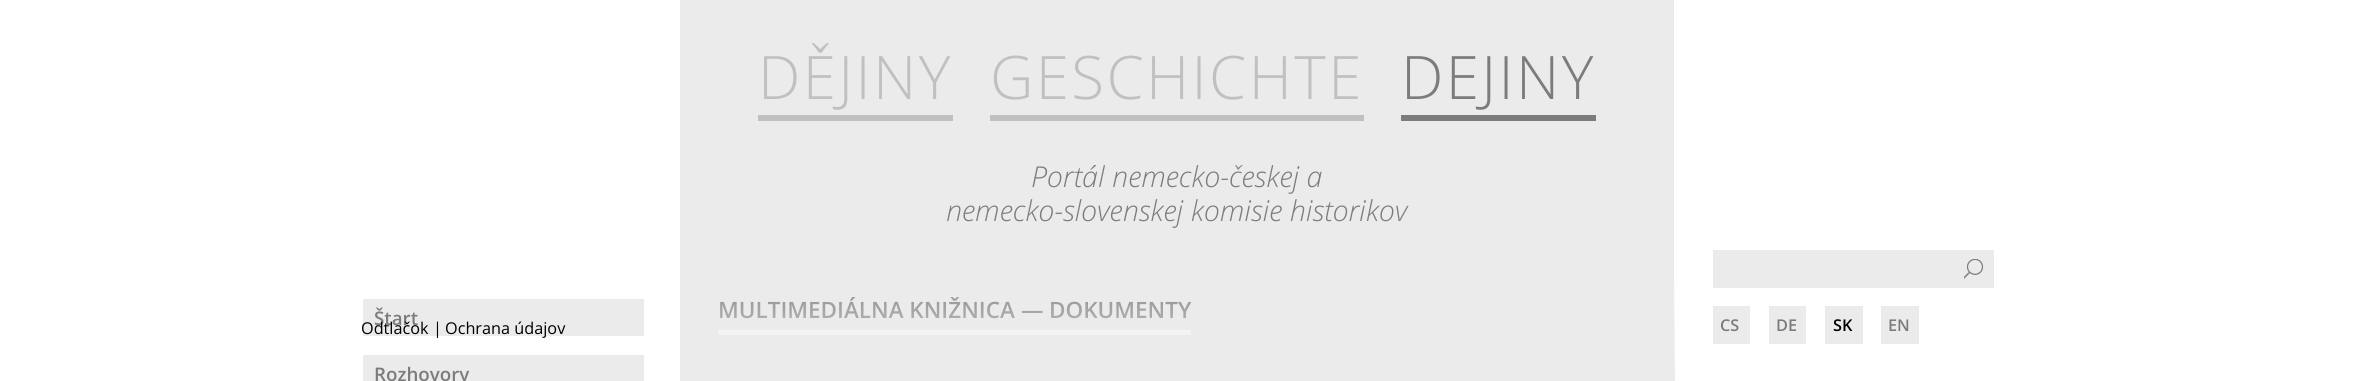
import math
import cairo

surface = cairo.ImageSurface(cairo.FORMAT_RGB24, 2353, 381)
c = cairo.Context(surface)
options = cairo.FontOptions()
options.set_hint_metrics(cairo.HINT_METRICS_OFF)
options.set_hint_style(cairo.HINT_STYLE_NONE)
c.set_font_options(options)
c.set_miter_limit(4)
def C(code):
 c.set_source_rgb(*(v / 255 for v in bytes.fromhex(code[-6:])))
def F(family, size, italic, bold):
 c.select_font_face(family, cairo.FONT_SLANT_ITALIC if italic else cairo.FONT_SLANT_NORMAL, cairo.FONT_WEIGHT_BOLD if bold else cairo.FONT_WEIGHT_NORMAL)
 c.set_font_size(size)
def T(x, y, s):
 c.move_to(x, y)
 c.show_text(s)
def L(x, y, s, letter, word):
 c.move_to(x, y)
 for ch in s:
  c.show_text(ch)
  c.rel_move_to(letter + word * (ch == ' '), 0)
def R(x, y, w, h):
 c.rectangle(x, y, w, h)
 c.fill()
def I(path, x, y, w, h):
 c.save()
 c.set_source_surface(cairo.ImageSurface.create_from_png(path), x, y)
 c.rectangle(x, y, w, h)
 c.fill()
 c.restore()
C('ffffff')
c.paint()
C('ebebeb')
R(680,0,994,381)
C('c0c0c0')
R(758,115,195,6)
F('Open Sans Light',60,0,0)
L(758,99,'DĚJINY',2.4,0)
R(990,115,374,6)
L(990,99,'GESCHICHTE',2.4,0)
C('7c7c7c')
R(1401,115,195,6)
L(1401,99,'DEJINY',2.4,0)
F('Open Sans Light',28.75,1,0)
T(1031,187,'Portál nemecko-českej a')
T(946,221,'nemecko-slovenskej komisie historikov')
C('ffffff')
R(718,330,473,5)
F('Open Sans SemiBold',22.5,0,0)
C('7c7c7c')
T(718,318,'MULTIMEDIÁLNA KNIŽNICA')
T(1021,318,'—')
T(1049,318,'DOKUMENTY')
C('ebebeb')
R(363,299,281,37)
F('Open Sans SemiBold',18.75,0,0)
C('7c7c7c')
T(374,325,'Štart')
C('ebebeb')
R(363,355,281,26)
C('7c7c7c')
T(374,381,'Rozhovory')
C('ebebeb')
R(1713,250,281,38)
I('1.png',1964,259,20,20)
R(1713,306,37,38)
F('Open Sans SemiBold',16.25,0,0)
C('7c7c7c')
T(1720,331,'CS')
C('ebebeb')
R(1769,306,37,38)
C('7c7c7c')
T(1776,331,'DE')
C('ebebeb')
R(1825,306,38,38)
C('000000')
T(1833,331,'SK')
C('ebebeb')
R(1881,306,38,38)
C('7c7c7c')
T(1888,331,'EN')
F('Open Sans',16.25,0,0)
C('000000')
T(361,334,'Odtlačok')
T(433,334,'|')
T(445,334,'Ochrana údajov')
gradient = cairo.LinearGradient(1178,269,1178,381)
gradient.add_color_stop_rgba(0,0.922,0.922,0.922,0)
gradient.add_color_stop_rgba(1,0.922,0.922,0.922,1)
c.set_source(gradient)
R(718,282,957,99)
surface.write_to_png('o.png')
